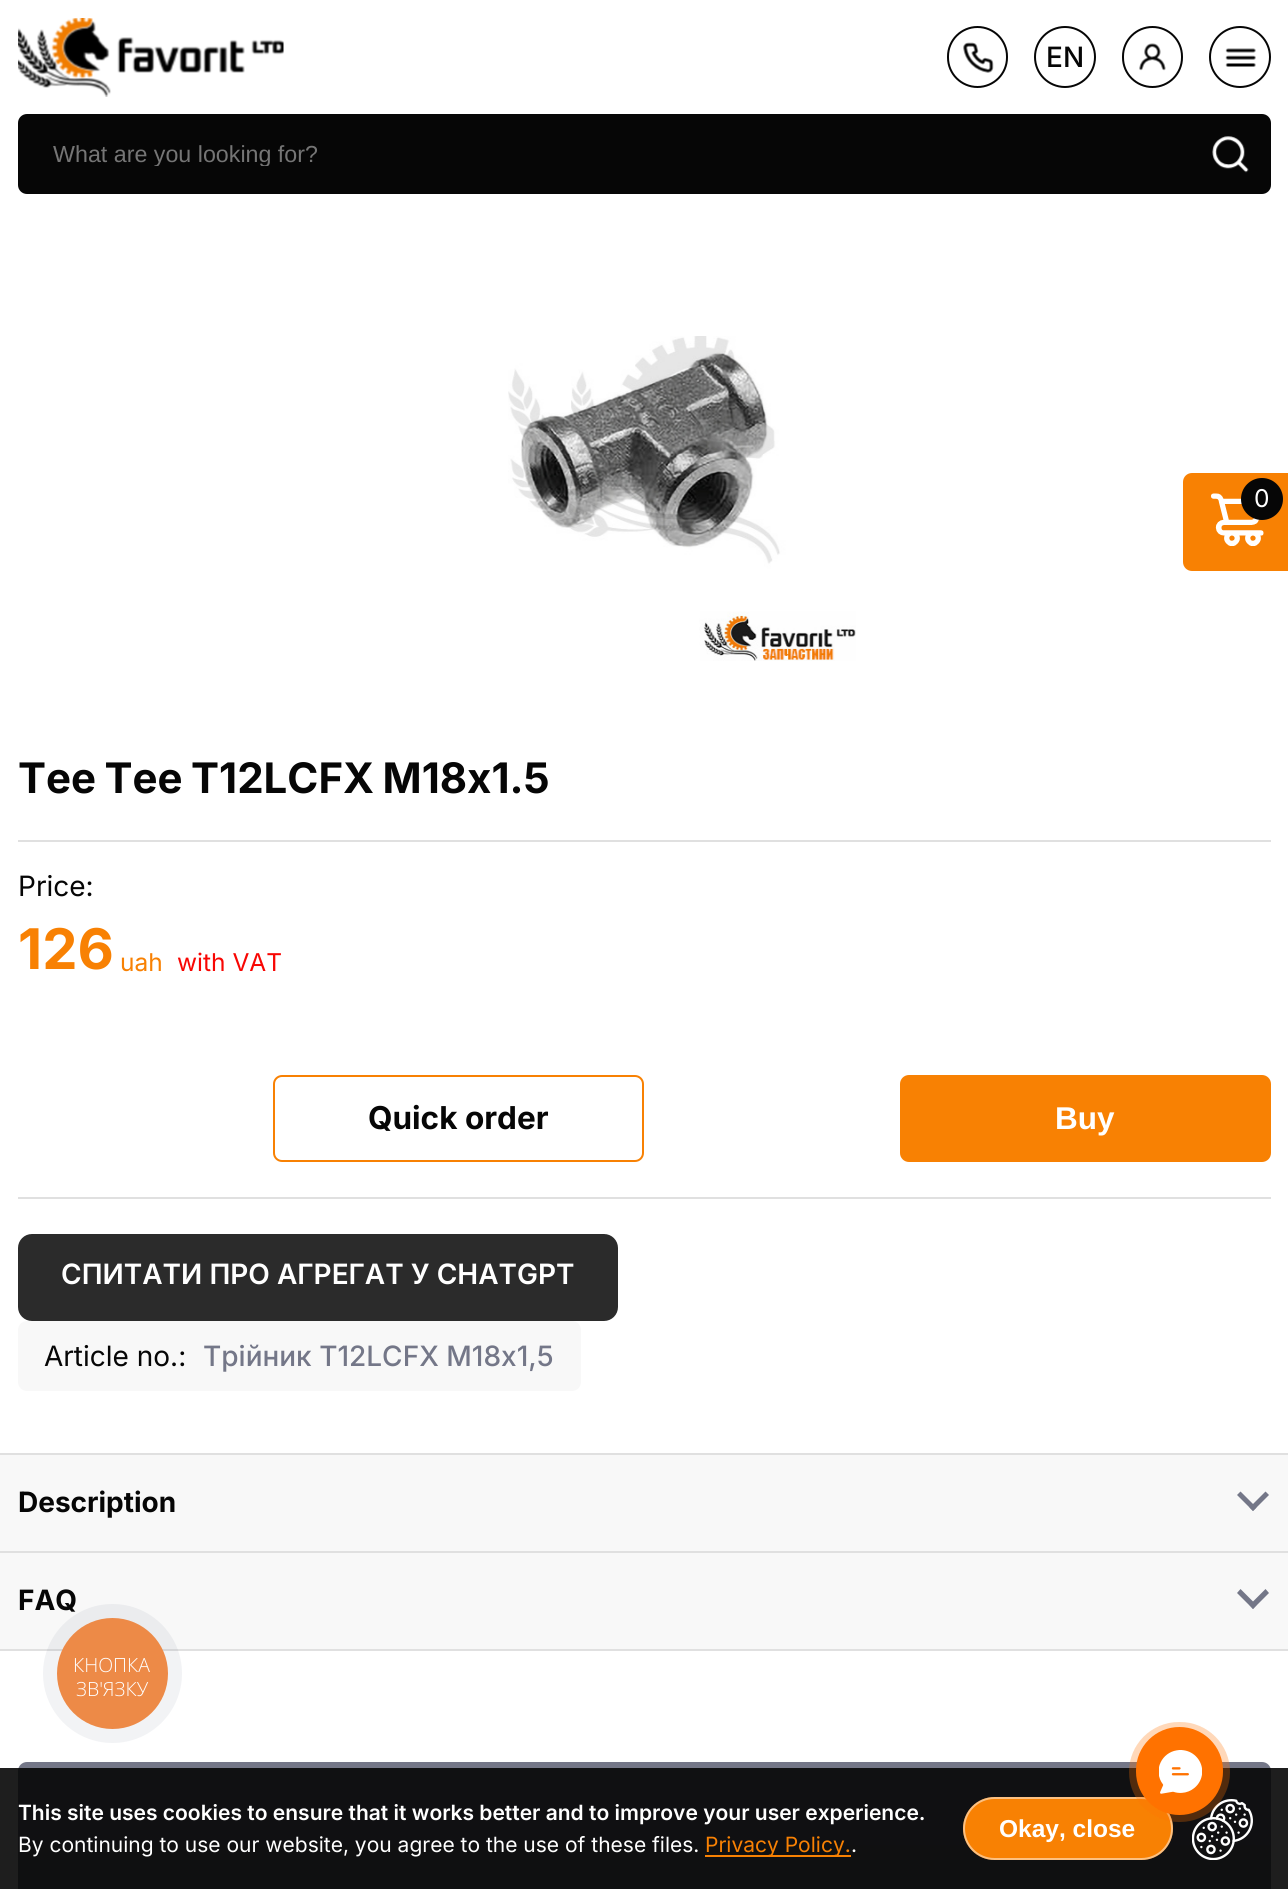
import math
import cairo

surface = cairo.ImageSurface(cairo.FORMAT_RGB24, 1288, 1889)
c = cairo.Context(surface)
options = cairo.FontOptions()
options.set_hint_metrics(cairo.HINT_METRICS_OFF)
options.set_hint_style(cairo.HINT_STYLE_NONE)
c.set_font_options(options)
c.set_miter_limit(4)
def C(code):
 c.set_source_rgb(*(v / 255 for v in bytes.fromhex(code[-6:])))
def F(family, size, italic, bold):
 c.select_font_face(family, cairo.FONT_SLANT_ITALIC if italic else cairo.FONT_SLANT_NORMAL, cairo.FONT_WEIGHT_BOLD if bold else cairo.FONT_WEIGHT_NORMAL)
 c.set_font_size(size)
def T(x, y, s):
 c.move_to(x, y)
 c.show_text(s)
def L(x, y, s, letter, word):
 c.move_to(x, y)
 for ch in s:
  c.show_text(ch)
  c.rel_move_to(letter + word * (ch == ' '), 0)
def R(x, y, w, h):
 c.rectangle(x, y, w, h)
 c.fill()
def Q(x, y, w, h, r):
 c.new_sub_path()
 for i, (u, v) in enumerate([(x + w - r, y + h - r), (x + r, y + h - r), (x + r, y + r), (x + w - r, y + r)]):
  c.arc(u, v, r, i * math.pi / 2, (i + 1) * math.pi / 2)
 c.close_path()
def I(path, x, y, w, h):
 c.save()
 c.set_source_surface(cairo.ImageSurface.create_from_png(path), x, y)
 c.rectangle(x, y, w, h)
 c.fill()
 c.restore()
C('ffffff')
c.paint()
I('1.png',18,18,266,79)
I('2.png',963,42,31,31)
Q(948,27,59,60,29.5)
C('060606')
c.stroke()
c.arc(1065,57,30,0,2 * math.pi)
c.stroke()
F('Inter Medium',28,0,0)
T(1046,67,'EN')
I('3.png',1139,43,27,28)
Q(1123,27,59,60,29.5)
c.stroke()
I('4.png',1225,48,31,19)
c.arc(1240,57,30,0,2 * math.pi)
c.stroke()
c.new_path()
c.move_to(27,114)
c.line_to(1190,114)
c.line_to(1190,194)
c.line_to(27,194)
c.curve_to(22,194,18,190,18,185)
c.line_to(18,123)
c.curve_to(18,118,22,114,27,114)
c.close_path()
c.fill()
c.save()
c.rectangle(53,140,1102,26)
c.clip()
F('Liberation Sans',23.25,0,0)
C('757575')
T(53,162,'What are you looking for?')
c.restore()
c.new_path()
c.move_to(1190,114)
c.line_to(1262,114)
c.curve_to(1267,114,1271,118,1271,123)
c.line_to(1271,185)
c.curve_to(1271,190,1267,194,1262,194)
c.line_to(1190,194)
c.close_path()
c.fill()
I('5.png',1212,136,37,37)
C('f88103')
c.new_path()
c.move_to(1192,473)
c.line_to(1288,473)
c.line_to(1288,571)
c.line_to(1192,571)
c.curve_to(1187,571,1183,567,1183,562)
c.line_to(1183,482)
c.curve_to(1183,477,1187,473,1192,473)
c.close_path()
c.fill()
I('6.png',1211,493,53,53)
C('060606')
c.arc(1262,499,21,0,2 * math.pi)
c.fill()
F('Inter',24.5,0,0)
C('ffffff')
T(1254,507,'0')
I('7.png',508,336,348,325)
F('Inter',42,0,1)
C('060606')
L(18,793,'Tee Tee T12LCFX M18x1.5',0,-1.5)
C('e0e0e0')
R(18,840,1253,2)
F('Inter',28,0,0)
C('060606')
T(18,896,'Price:')
F('Inter',56,0,1)
C('f88103')
T(18,969,'126')
F('Inter',24.5,0,0)
T(120,971,'uah')
C('f80603')
T(177,971,'with VAT')
C('e0e0e0')
R(18,1197,1253,2)
Q(274,1076,369,85,8)
C('f88103')
c.stroke()
F('Inter',31.5,0,1)
C('060606')
T(368,1129,'Quick order')
C('f88103')
Q(900,1075,371,87,9)
c.fill()
F('Liberation Sans',31.5,0,1)
C('ffffff')
T(1055,1129,'Buy')
C('2b2b2b')
Q(19,1235,598,85,13)
c.fill_preserve()
c.stroke()
F('Inter SemiBold',28,0,0)
C('ffffff')
T(61,1284,'СПИТАТИ ПРО АГРЕГАТ У CHATGPT')
C('f8f8f8')
Q(18,1321,563,70,9)
c.fill()
F('Inter',28,0,0)
C('060606')
T(44,1366,'Article no.:')
F('Inter Medium',28,0,0)
C('747788')
T(203,1366,'Трійник T12LCFX М18х1,5')
C('f8f8f8')
R(0,1455,1288,96)
C('e0e0e0')
R(0,1453,1288,2)
F('Inter',28,0,1)
C('060606')
T(18,1512,'Description')
C('747788')
c.new_path()
c.move_to(1253,1511)
c.line_to(1237,1495)
c.line_to(1240.5,1491.5)
c.line_to(1256.5,1507.5)
c.close_path()
c.fill()
c.new_path()
c.move_to(1253,1511)
c.line_to(1249.5,1507.5)
c.line_to(1265.5,1491.5)
c.line_to(1269,1495)
c.close_path()
c.fill()
C('f8f8f8')
R(0,1553,1288,96)
C('e0e0e0')
R(0,1551,1288,2)
R(0,1649,1288,2)
C('060606')
T(18,1610,'FAQ')
C('747788')
c.new_path()
c.move_to(1253,1609)
c.line_to(1237,1593)
c.line_to(1240.5,1589)
c.line_to(1256.5,1605)
c.close_path()
c.fill()
c.new_path()
c.move_to(1253,1609)
c.line_to(1249.5,1605)
c.line_to(1265.5,1589)
c.line_to(1269,1593)
c.close_path()
c.fill()
gradient = cairo.LinearGradient(644,1762,644,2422)
gradient.add_color_stop_rgba(0,0.455,0.467,0.533,1)
gradient.add_color_stop_rgba(1,0.231,0.235,0.271,1)
c.set_source(gradient)
Q(18,1762,1253,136,9)
c.fill()
c.set_source_rgba(0.024,0.024,0.024,0.9)
R(0,1768,1288,121)
F('Inter SemiBold',21,0,0)
C('ffffff')
T(18,1820,'This site uses cookies to ensure that it works better and to improve your user experience.')
F('Inter',21,0,0)
T(18,1852,'By continuing to use our website, you agree to the use of these files.')
C('f88103')
R(705,1855,146,2)
T(705,1852,'Privacy Policy.')
C('ffffff')
T(851,1852,'.')
C('f88103')
Q(963,1797,210,63,31.5)
c.fill()
Q(964,1798,208,61,30.5)
c.set_source_rgba(1,1,1,0.5)
c.stroke()
F('Liberation Sans',24.5,0,1)
C('ffffff')
T(999,1837,'Okay, close')
I('8.png',1192,1799,61,61)
c.set_source_rgba(0.165,0.251,0.365,0.06)
c.arc(112.5,1673.5,69.5,0,2 * math.pi)
c.fill()
C('ed8a47')
c.arc(112.5,1673.5,55.5,0,2 * math.pi)
c.fill()
F('Open Sans Light',19.5,0,0)
C('ffffff')
T(73,1672,'КНОПКА')
T(76,1696,'ЗВ\'ЯЗКУ')
C('ff7200')
Q(1136,1727,87,88,43.5)
c.fill()
c.set_source_rgba(1,0.447,0,0.15)
Q(1129,1722,101,100,50)
c.fill()
Q(1129,1722,101,100,50)
c.fill()
I('9.png',1159,1750,43,44)
surface.write_to_png('o.png')
